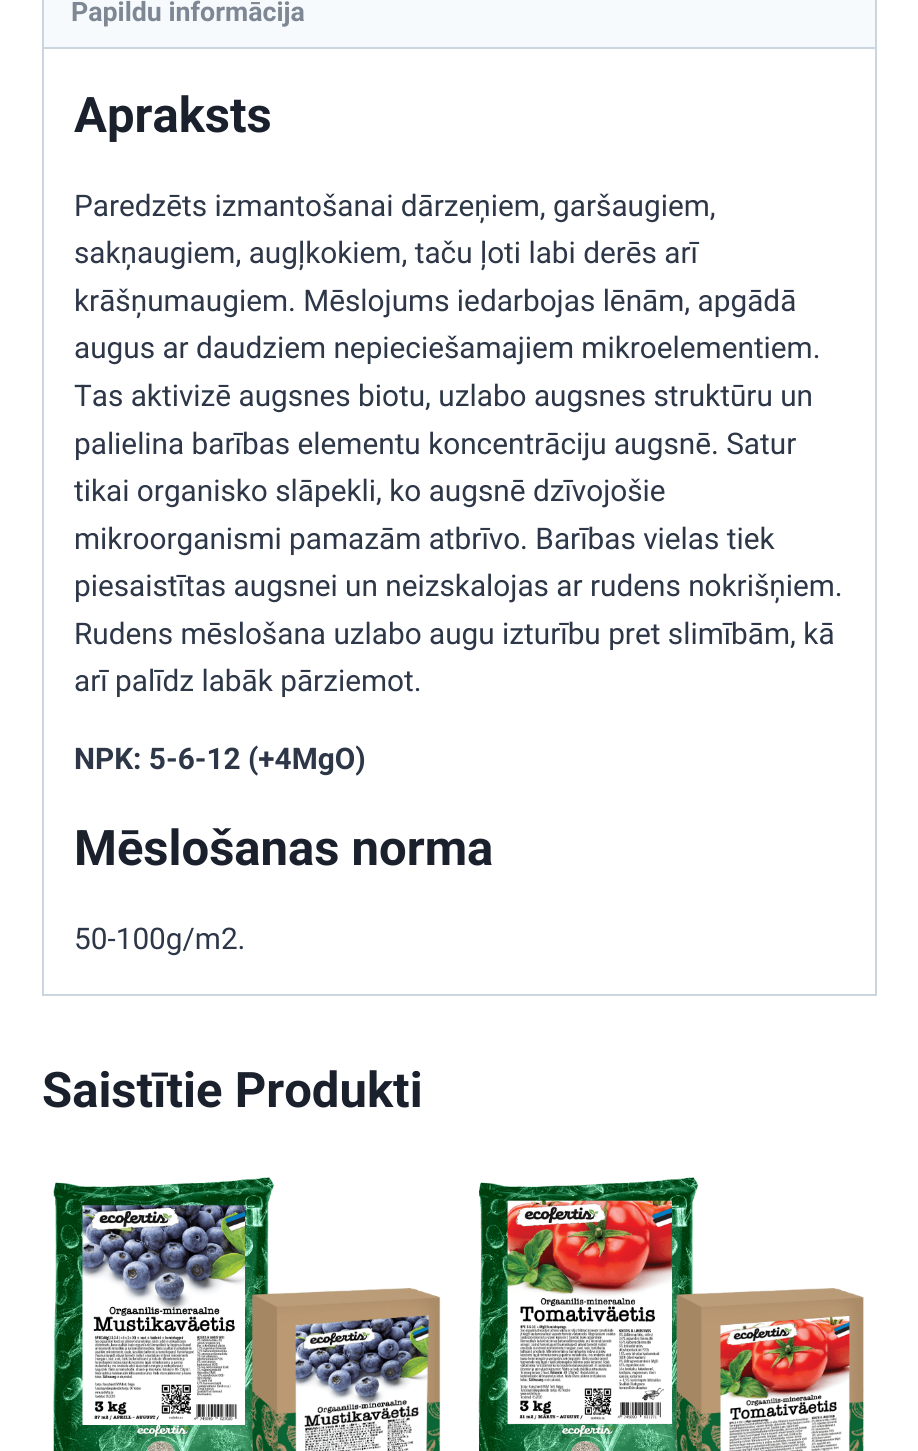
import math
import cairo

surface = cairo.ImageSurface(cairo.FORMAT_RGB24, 918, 1451)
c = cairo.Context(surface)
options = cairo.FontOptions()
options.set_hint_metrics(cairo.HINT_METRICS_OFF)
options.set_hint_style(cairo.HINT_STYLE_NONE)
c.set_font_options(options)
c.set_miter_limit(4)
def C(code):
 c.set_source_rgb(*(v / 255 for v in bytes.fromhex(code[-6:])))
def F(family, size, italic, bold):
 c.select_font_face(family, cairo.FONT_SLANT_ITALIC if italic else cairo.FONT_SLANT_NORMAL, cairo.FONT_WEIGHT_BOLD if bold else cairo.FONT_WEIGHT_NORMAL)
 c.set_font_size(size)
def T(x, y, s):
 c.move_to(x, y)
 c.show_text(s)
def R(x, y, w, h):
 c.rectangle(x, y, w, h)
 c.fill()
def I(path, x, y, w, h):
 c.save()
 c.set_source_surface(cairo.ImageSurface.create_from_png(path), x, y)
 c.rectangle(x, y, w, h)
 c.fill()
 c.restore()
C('ffffff')
c.paint()
c.rectangle(43,-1,833,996)
C('cbd5e0')
c.stroke()
C('f7fafc')
R(44,0,831,47)
C('cbd5e0')
R(44,47,831,2)
F('Roboto',26.75,0,1)
C('7e8794')
T(71,21,'Papildu informācija')
F('Roboto',49,0,1)
C('1a202c')
T(74,132,'Apraksts')
F('Roboto',29.75,0,0)
C('2d3748')
T(74,216,'Paredzēts izmantošanai dārzeņiem, garšaugiem,')
T(74,263,'sakņaugiem, augļkokiem, taču ļoti labi derēs arī')
T(74,311,'krāšņumaugiem. Mēslojums iedarbojas lēnām, apgādā')
T(74,358,'augus ar daudziem nepieciešamajiem mikroelementiem.')
T(74,406,'Tas aktivizē augsnes biotu, uzlabo augsnes struktūru un')
T(74,454,'palielina barības elementu koncentrāciju augsnē. Satur')
T(74,501,'tikai organisko slāpekli, ko augsnē dzīvojošie')
T(74,549,'mikroorganismi pamazām atbrīvo. Barības vielas tiek')
T(74,596,'piesaistītas augsnei un neizskalojas ar rudens nokrišņiem.')
T(74,644,'Rudens mēslošana uzlabo augu izturību pret slimībām, kā')
T(74,691,'arī palīdz labāk pārziemot.')
F('Roboto',29.75,0,1)
T(74,769,'NPK: 5-6-12 (+4MgO)')
F('Roboto',49,0,1)
C('1a202c')
T(74,865,'Mēslošanas norma')
F('Roboto',29.75,0,0)
C('2d3748')
T(74,949,'50-100g/m2.')
F('Roboto',49,0,1)
C('1a202c')
T(42,1107,'Saistītie Produkti')
I('1.png',53,1177,388,274)
I('2.png',478,1177,386,274)
surface.write_to_png('o.png')
